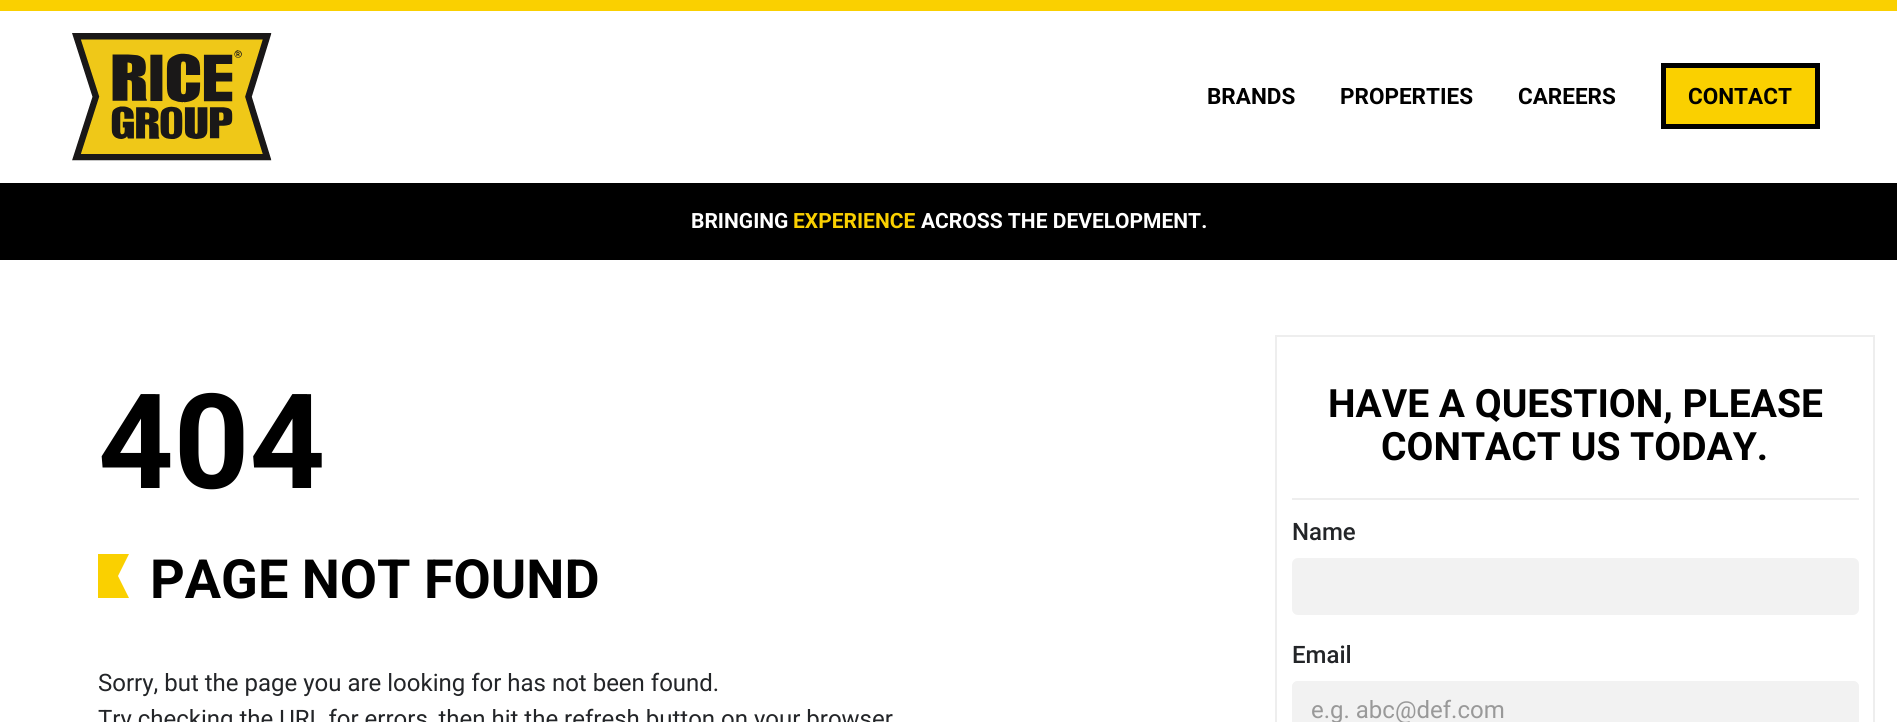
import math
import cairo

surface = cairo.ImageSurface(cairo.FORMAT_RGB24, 1897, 722)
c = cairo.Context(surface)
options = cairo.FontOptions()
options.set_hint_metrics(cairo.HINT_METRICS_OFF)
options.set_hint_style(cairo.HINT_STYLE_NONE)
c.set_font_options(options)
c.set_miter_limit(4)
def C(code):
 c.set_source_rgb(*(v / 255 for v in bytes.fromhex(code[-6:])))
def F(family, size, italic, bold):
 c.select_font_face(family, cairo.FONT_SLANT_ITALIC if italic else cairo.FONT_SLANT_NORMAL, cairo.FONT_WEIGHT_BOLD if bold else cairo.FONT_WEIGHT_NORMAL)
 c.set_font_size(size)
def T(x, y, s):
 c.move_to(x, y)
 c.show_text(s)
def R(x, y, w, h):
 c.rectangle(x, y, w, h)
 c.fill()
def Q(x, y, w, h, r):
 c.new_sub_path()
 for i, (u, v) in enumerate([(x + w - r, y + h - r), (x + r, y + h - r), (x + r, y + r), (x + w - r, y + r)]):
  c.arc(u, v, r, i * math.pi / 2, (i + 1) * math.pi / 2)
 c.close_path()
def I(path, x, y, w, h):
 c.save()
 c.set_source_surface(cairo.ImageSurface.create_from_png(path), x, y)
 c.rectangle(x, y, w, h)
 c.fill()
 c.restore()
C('ffffff')
c.paint()
C('fad000')
R(0,0,1897,11)
I('1.png',72,33,200,128)
F('Roboto',22.5,0,1)
C('000000')
T(1207,104,'BRANDS')
T(1340,104,'PROPERTIES')
T(1518,104,'CAREERS')
C('fad000')
c.rectangle(1663.5,65.5,154,61)
c.fill_preserve()
C('000000')
c.set_line_width(5)
c.stroke()
T(1688,104,'CONTACT')
R(0,183,1897,77)
F('Roboto',21,0,1)
C('ffffff')
T(691,228,'BRINGING')
C('fad000')
T(793,228,'EXPERIENCE')
C('ffffff')
T(921,228,'ACROSS THE DEVELOPMENT.')
F('Roboto',132,0,1)
C('000000')
T(98,488,'404')
C('fad000')
c.new_path()
c.move_to(98,554)
c.line_to(129,554)
c.line_to(118,576)
c.line_to(129,598)
c.line_to(98,598)
c.close_path()
c.fill()
F('Roboto',54,0,1)
C('000000')
T(150,598,'PAGE NOT FOUND')
F('Roboto',24,0,0)
C('232528')
T(98,691,'Sorry, but the page you are looking for has not been found.')
T(98,727,'Try checking the URL for errors, then hit the refresh button on your browser')
c.rectangle(1276,336,598,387)
C('eeeeee')
c.set_line_width(2)
c.stroke()
F('Roboto',39,0,1)
C('000000')
T(1328,417,'HAVE A QUESTION, PLEASE')
T(1381,460,'CONTACT US TODAY.')
C('eeeeee')
R(1292,498,567,2)
F('Roboto Medium',24,0,0)
C('232528')
T(1292,540,'Name')
C('f2f2f2')
Q(1293,559,565,55,5)
c.fill_preserve()
c.stroke()
C('232528')
T(1292,663,'Email')
C('f2f2f2')
c.new_path()
c.move_to(1298,681)
c.line_to(1853,681)
c.curve_to(1856.5,681,1859,683.5,1859,687)
c.line_to(1859,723)
c.line_to(1292,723)
c.line_to(1292,687)
c.curve_to(1292,683.5,1294.5,681,1298,681)
c.close_path()
c.fill()
Q(1293,682,565,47,5)
c.stroke()
F('Roboto',24,0,0)
C('999999')
T(1311,718,'e.g. abc@def.com')
surface.write_to_png('o.png')
